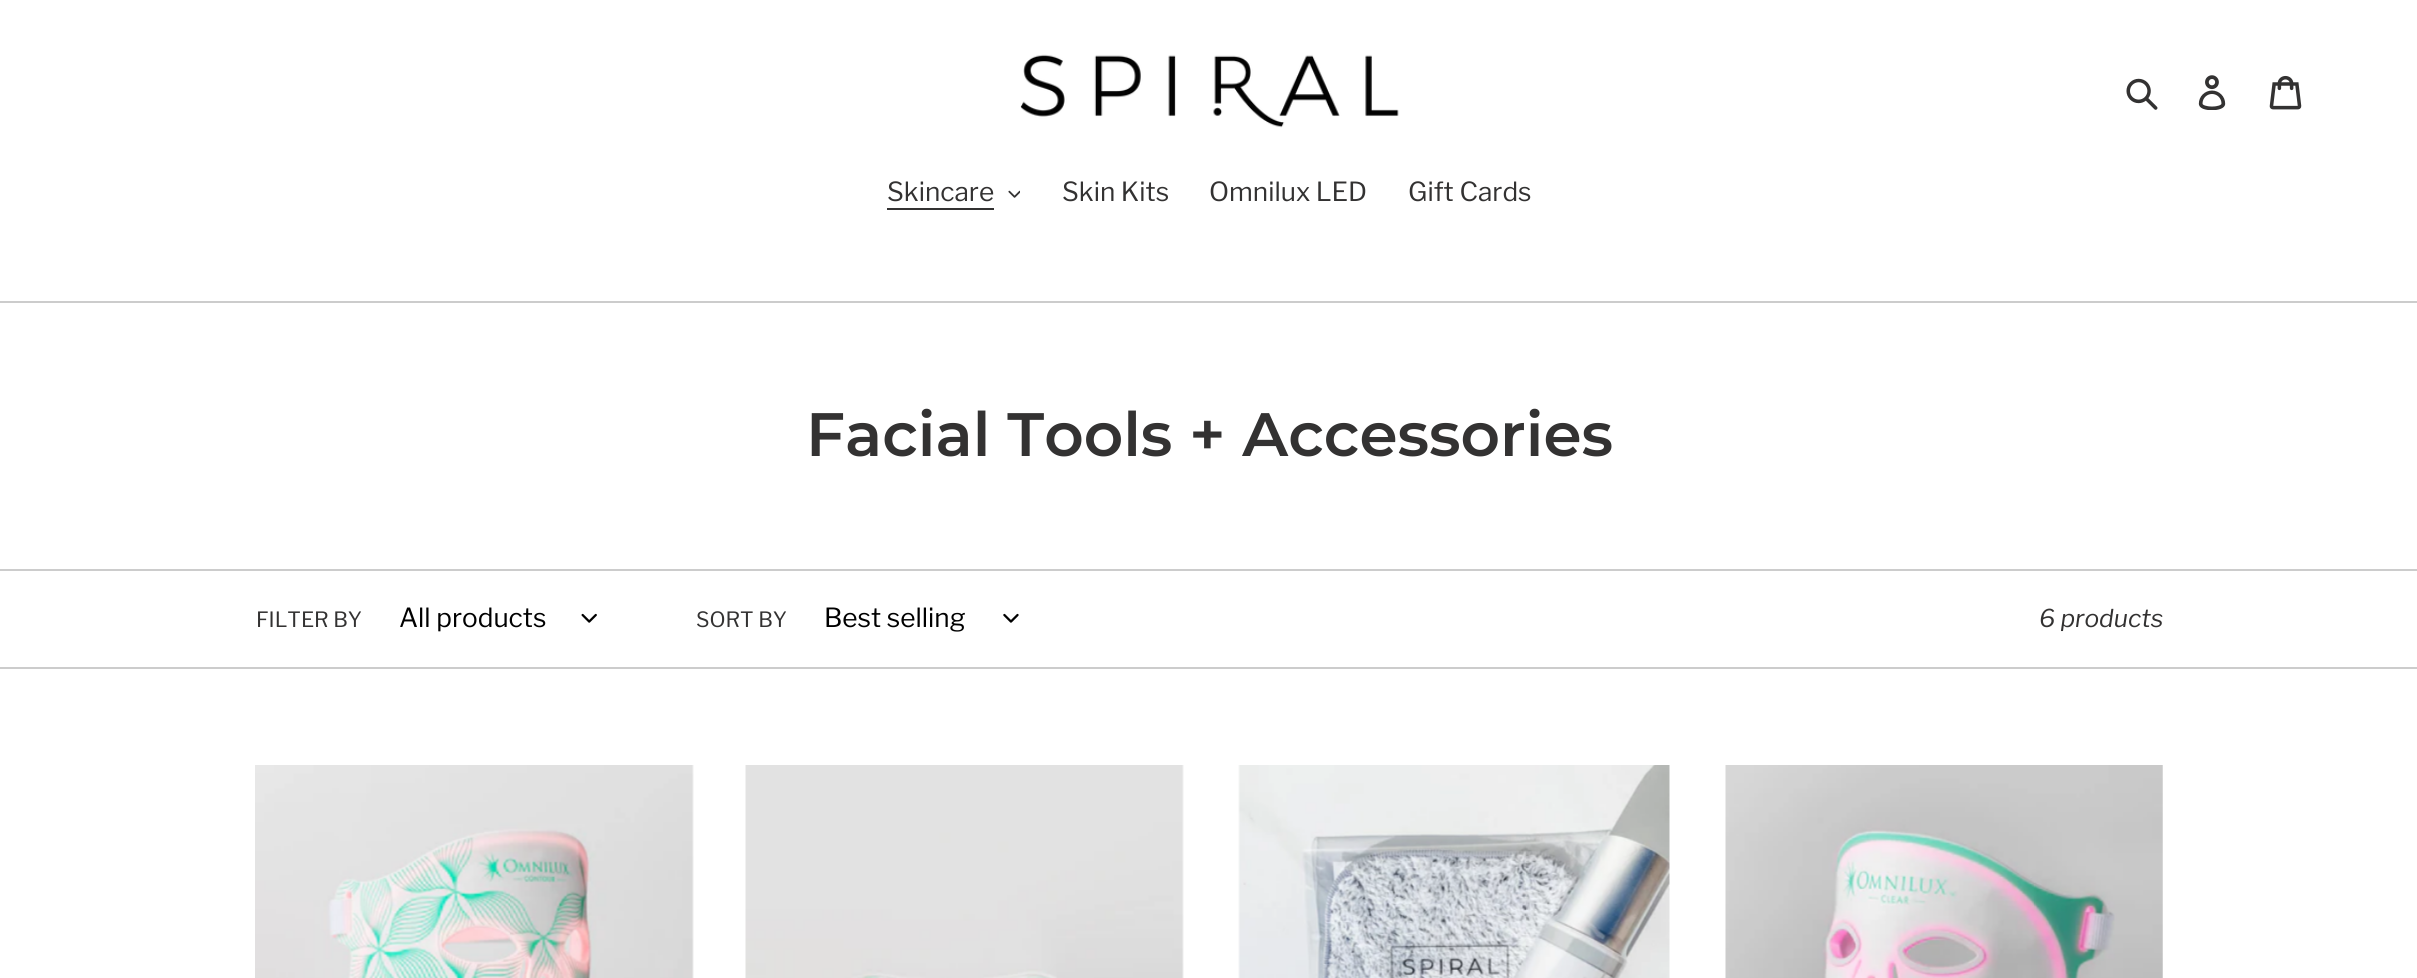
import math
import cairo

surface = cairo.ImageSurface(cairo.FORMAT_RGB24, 2417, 978)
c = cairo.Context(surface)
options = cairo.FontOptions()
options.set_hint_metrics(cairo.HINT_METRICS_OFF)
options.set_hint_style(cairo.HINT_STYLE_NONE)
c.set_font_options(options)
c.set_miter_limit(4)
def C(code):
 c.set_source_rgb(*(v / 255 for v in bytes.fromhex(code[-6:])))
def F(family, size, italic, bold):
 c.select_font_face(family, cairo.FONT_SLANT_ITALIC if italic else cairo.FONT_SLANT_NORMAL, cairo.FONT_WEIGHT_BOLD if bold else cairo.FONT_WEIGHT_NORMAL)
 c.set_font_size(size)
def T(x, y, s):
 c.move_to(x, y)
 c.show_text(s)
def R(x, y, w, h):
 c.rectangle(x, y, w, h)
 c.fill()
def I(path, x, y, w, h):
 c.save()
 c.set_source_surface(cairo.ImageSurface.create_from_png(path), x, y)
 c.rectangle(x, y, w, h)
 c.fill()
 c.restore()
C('ffffff')
c.paint()
I('1.png',1020,54,379,74)
I('2.png',2126,78,32,32)
I('3.png',2198,75,28,35)
I('4.png',2269,75,33,35)
C('cccccc')
R(0,301,2417,2)
F('Libre Franklin',26.25,0,0)
C('333232')
T(887,201,'Skincare')
R(887,208,107,2)
I('5.png',1008,190,12,8)
T(1062,201,'Skin Kits')
T(1209,201,'Omnilux LED')
T(1408,201,'Gift Cards')
F('Montserrat SemiBold',61.25,0,0)
T(806,456,'Facial Tools + Accessories')
C('cccccc')
R(0,569,2417,2)
R(0,667,2417,2)
F('Libre Franklin',21,0,0)
C('333232')
T(256,627,'FILTER BY')
F('Libre Franklin',26.25,0,0)
C('000000')
T(399,627,'All products')
I('6.png',581,613,16,10)
F('Libre Franklin',21,0,0)
C('333232')
T(696,627,'SORT BY')
F('Libre Franklin',26.25,0,0)
C('000000')
T(824,627,'Best selling')
I('7.png',1003,613,16,10)
F('Libre Franklin',24.5,1,0)
C('333232')
T(2039,627,'6 products')
I('8.png',255,765,439,213)
I('9.png',745,765,439,213)
I('10.png',1238,765,432,213)
I('11.png',1725,765,438,213)
surface.write_to_png('o.png')
